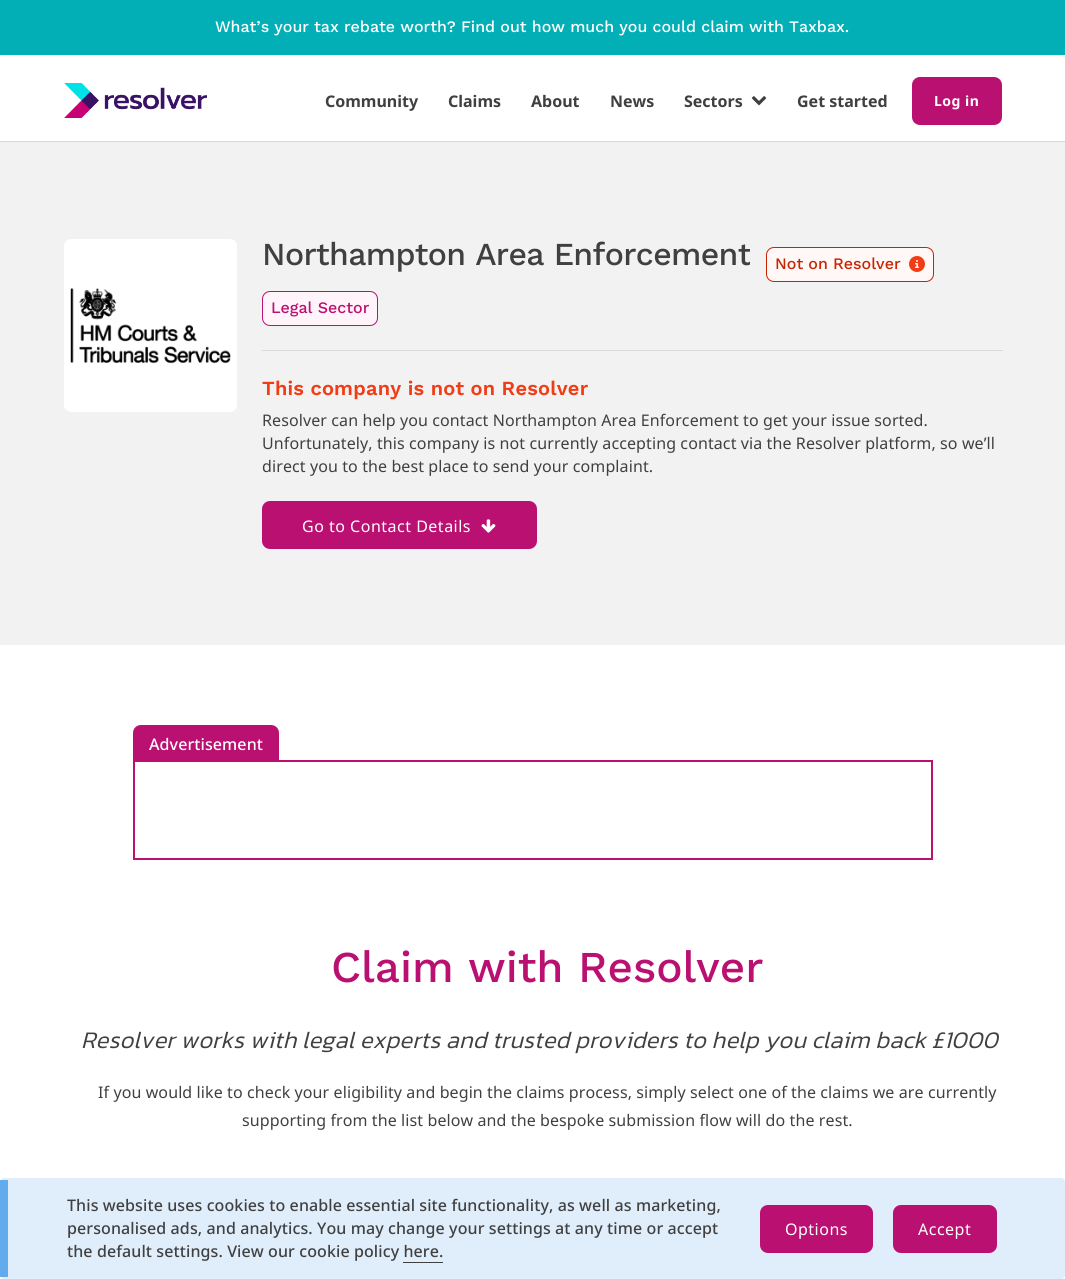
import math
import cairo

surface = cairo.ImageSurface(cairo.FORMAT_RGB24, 1065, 1279)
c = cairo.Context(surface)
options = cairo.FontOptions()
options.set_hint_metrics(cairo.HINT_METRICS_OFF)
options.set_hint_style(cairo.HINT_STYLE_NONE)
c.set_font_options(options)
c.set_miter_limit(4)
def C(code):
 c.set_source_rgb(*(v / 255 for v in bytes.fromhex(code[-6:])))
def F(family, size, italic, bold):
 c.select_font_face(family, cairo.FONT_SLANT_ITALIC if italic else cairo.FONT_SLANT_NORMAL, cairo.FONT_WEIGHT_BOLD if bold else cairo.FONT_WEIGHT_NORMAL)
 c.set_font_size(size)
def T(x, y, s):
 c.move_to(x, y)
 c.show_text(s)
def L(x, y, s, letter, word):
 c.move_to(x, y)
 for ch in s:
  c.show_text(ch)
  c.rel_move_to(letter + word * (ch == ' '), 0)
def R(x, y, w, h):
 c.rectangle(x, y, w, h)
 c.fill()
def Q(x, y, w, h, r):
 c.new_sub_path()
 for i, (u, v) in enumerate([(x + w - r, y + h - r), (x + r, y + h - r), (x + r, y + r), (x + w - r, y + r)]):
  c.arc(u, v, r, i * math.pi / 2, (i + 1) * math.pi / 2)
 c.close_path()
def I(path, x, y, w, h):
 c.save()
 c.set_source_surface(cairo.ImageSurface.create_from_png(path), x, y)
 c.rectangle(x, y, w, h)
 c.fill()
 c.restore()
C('ffffff')
c.paint()
C('02afb6')
R(0,0,1065,55)
F('Work Sans Medium',16,0,0)
C('ffffff')
T(215,32,'What’s your tax rebate worth? Find out how much you could claim with Taxbax.')
C('d9d9d9')
R(0,141,1065,1)
I('1.png',64,83,143,35)
F('Noto Sans',16,0,1)
C('404040')
T(325,107,'Community')
T(448,107,'Claims')
T(531,107,'About')
T(610,107,'News')
T(684,107,'Sectors')
I('2.png',751,96,16,10)
T(797,107,'Get started')
C('ba1071')
Q(913,78,88,46,7)
c.fill_preserve()
c.stroke()
F('Noto Sans',14,0,1)
C('ffffff')
L(934,106,'Log in',.5,0)
C('f2f2f2')
R(0,142,1065,503)
I('3.png',64,239,173,173)
c.save()
c.rectangle(262,238,488,37)
c.clip()
F('Work Sans Medium',32,0,0)
C('404040')
L(262,265,'Northampton Area Enforcement',-.65,0)
c.restore()
C('fff8f7')
Q(766.5,247.5,167,34,7.5)
c.fill_preserve()
C('c72400')
c.set_line_width(1)
c.stroke()
F('Work Sans Medium',16,0,0)
T(775,269,'Not on Resolver')
I('4.png',909,256,16,16)
C('fef4fa')
Q(262.5,291.5,115,34,7.5)
c.fill_preserve()
C('ba1071')
c.stroke()
T(271,313,'Legal Sector')
C('d9d9d9')
R(262,350,741,1)
F('Work Sans SemiBold',20,0,0)
C('f13d15')
L(262,395,'This company is not on Resolver',.2,0)
F('Noto Sans',16,0,0)
C('404040')
L(262,426,'Resolver can help you contact Northampton Area Enforcement to get your issue sorted.',.1,0)
L(262,449,'Unfortunately, this company is not currently accepting contact via the Resolver platform, so we’ll',.1,0)
L(262,472,'direct you to the best place to send your complaint.',.1,0)
C('ba1071')
Q(262,501,275,48,8)
c.fill()
C('ffffff')
L(302,532,'Go to Contact Details',.5,0)
I('5.png',481,519,15,14)
C('ba1071')
c.new_path()
c.move_to(141,725)
c.line_to(271,725)
c.curve_to(275.5,725,279,728.5,279,733)
c.line_to(279,760)
c.line_to(133,760)
c.line_to(133,733)
c.curve_to(133,728.5,136.5,725,141,725)
c.close_path()
c.fill()
F('Noto Sans Medium',16,0,0)
C('ffffff')
L(149,750,'Advertisement',.1,0)
c.rectangle(134,761,798,98)
C('ba1071')
c.set_line_width(2)
c.stroke()
F('Work Sans Medium',44,0,0)
T(331,982,'Claim with Resolver')
F('Kanit Light',24,1,0)
C('404040')
L(81,1048,'Resolver works with legal experts and trusted providers to help you claim back £1000',.1,0)
F('Noto Sans',16,0,0)
L(98,1098,'If you would like to check your eligibility and begin the claims process, simply select one of the claims we are currently',.1,0)
L(242,1126,'supporting from the list below and the bespoke submission flow will do the rest.',.1,0)
C('e0eefb')
Q(0,1178,1065,101,4)
c.fill()
C('62aced')
R(0,1180,8,97)
F('Noto Sans Medium',16,0,0)
C('404040')
L(67,1211,'This website uses cookies to enable essential site functionality, as well as marketing,',.1,0)
L(67,1234,'personalised ads, and analytics. You may change your settings at any time or accept',.1,0)
L(67,1257,'the default settings. View our cookie policy here.',.1,0)
R(403,1262,40,1)
C('ba1071')
Q(760,1205,113,48,8)
c.fill()
F('Noto Sans',16,0,0)
C('ffffff')
L(785,1235,'Options',.5,0)
C('ba1071')
Q(893,1205,104,48,8)
c.fill()
C('ffffff')
L(918,1235,'Accept',.5,0)
surface.write_to_png('o.png')
